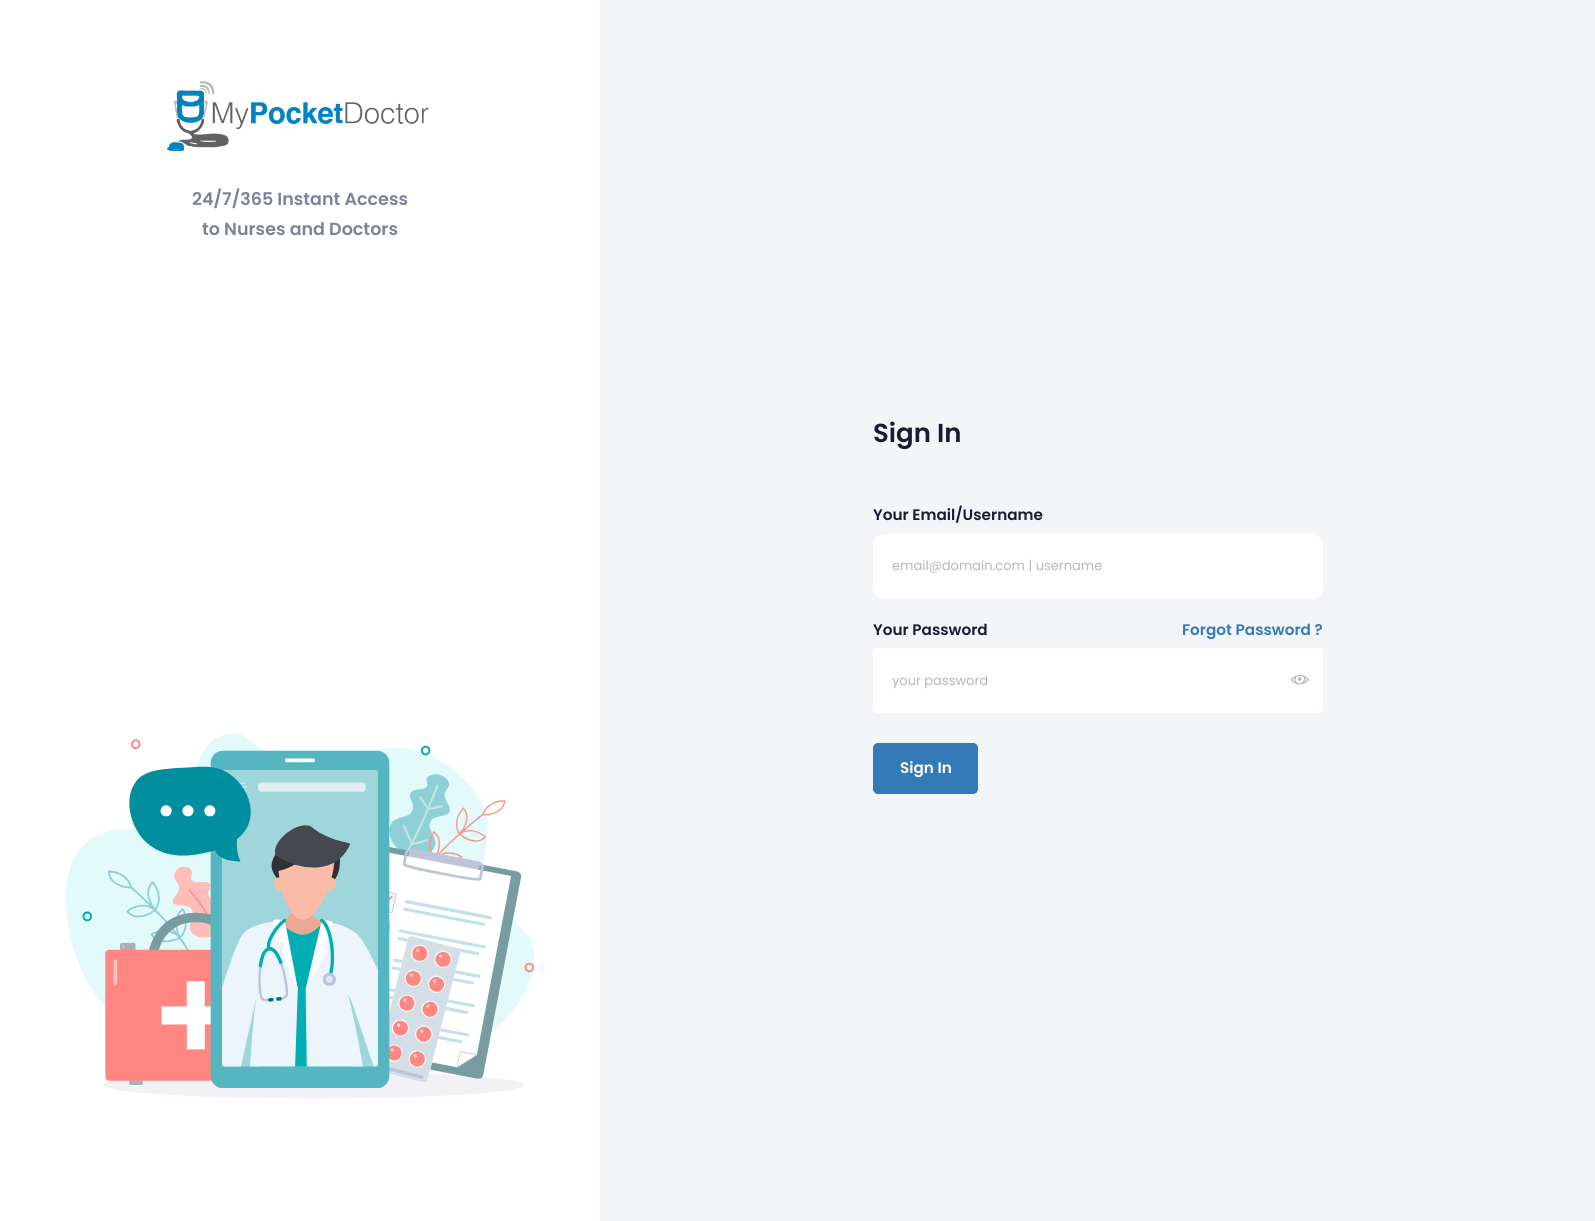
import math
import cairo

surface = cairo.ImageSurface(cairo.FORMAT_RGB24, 1595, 1221)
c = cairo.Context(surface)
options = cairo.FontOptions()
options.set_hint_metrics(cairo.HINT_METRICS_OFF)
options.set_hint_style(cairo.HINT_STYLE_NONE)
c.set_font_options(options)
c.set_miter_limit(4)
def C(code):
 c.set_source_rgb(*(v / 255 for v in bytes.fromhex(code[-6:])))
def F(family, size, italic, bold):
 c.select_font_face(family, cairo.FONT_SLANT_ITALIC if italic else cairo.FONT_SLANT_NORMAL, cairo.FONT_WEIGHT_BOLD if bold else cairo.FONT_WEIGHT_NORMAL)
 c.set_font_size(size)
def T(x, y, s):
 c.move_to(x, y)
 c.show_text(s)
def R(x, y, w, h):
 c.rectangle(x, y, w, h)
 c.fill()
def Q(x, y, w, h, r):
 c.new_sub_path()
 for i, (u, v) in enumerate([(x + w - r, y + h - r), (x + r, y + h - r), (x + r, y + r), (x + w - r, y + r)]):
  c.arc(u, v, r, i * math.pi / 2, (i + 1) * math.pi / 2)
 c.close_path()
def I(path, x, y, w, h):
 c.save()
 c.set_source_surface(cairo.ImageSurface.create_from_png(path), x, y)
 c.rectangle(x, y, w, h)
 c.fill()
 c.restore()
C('ffffff')
c.paint()
I('1.png',167,81,262,70)
F('Poppins SemiBold',17.5,0,0)
C('7e8299')
T(192,205,'24/7/365 Instant Access')
T(202,235,'to Nurses and Doctors')
I('2.png',65,733,470,366)
C('f3f5f9')
R(600,0,995,1221)
F('Poppins SemiBold',26,0,0)
C('181c32')
T(873,442,'Sign In')
F('Poppins SemiBold',15.25,0,0)
T(873,520,'Your Email/Username')
C('ffffff')
Q(873,534,450,65,11)
c.fill()
F('Poppins',13,0,0)
C('b5b5c3')
T(892,570,'email@domain.com | username')
F('Poppins SemiBold',15.25,0,0)
C('181c32')
T(873,635,'Your Password')
C('337ab7')
T(1182,635,'Forgot Password ?')
C('ffffff')
Q(873,648,450,65,5)
c.fill()
F('Poppins',13,0,0)
C('b5b5c3')
T(892,685,'your password')
I('3.png',1290,674,19,11)
C('337ab7')
Q(873.5,743.5,104,50,4.5)
c.fill_preserve()
c.set_line_width(1)
c.stroke()
F('Poppins SemiBold',15.25,0,0)
C('ffffff')
T(900,773,'Sign In')
surface.write_to_png('o.png')
